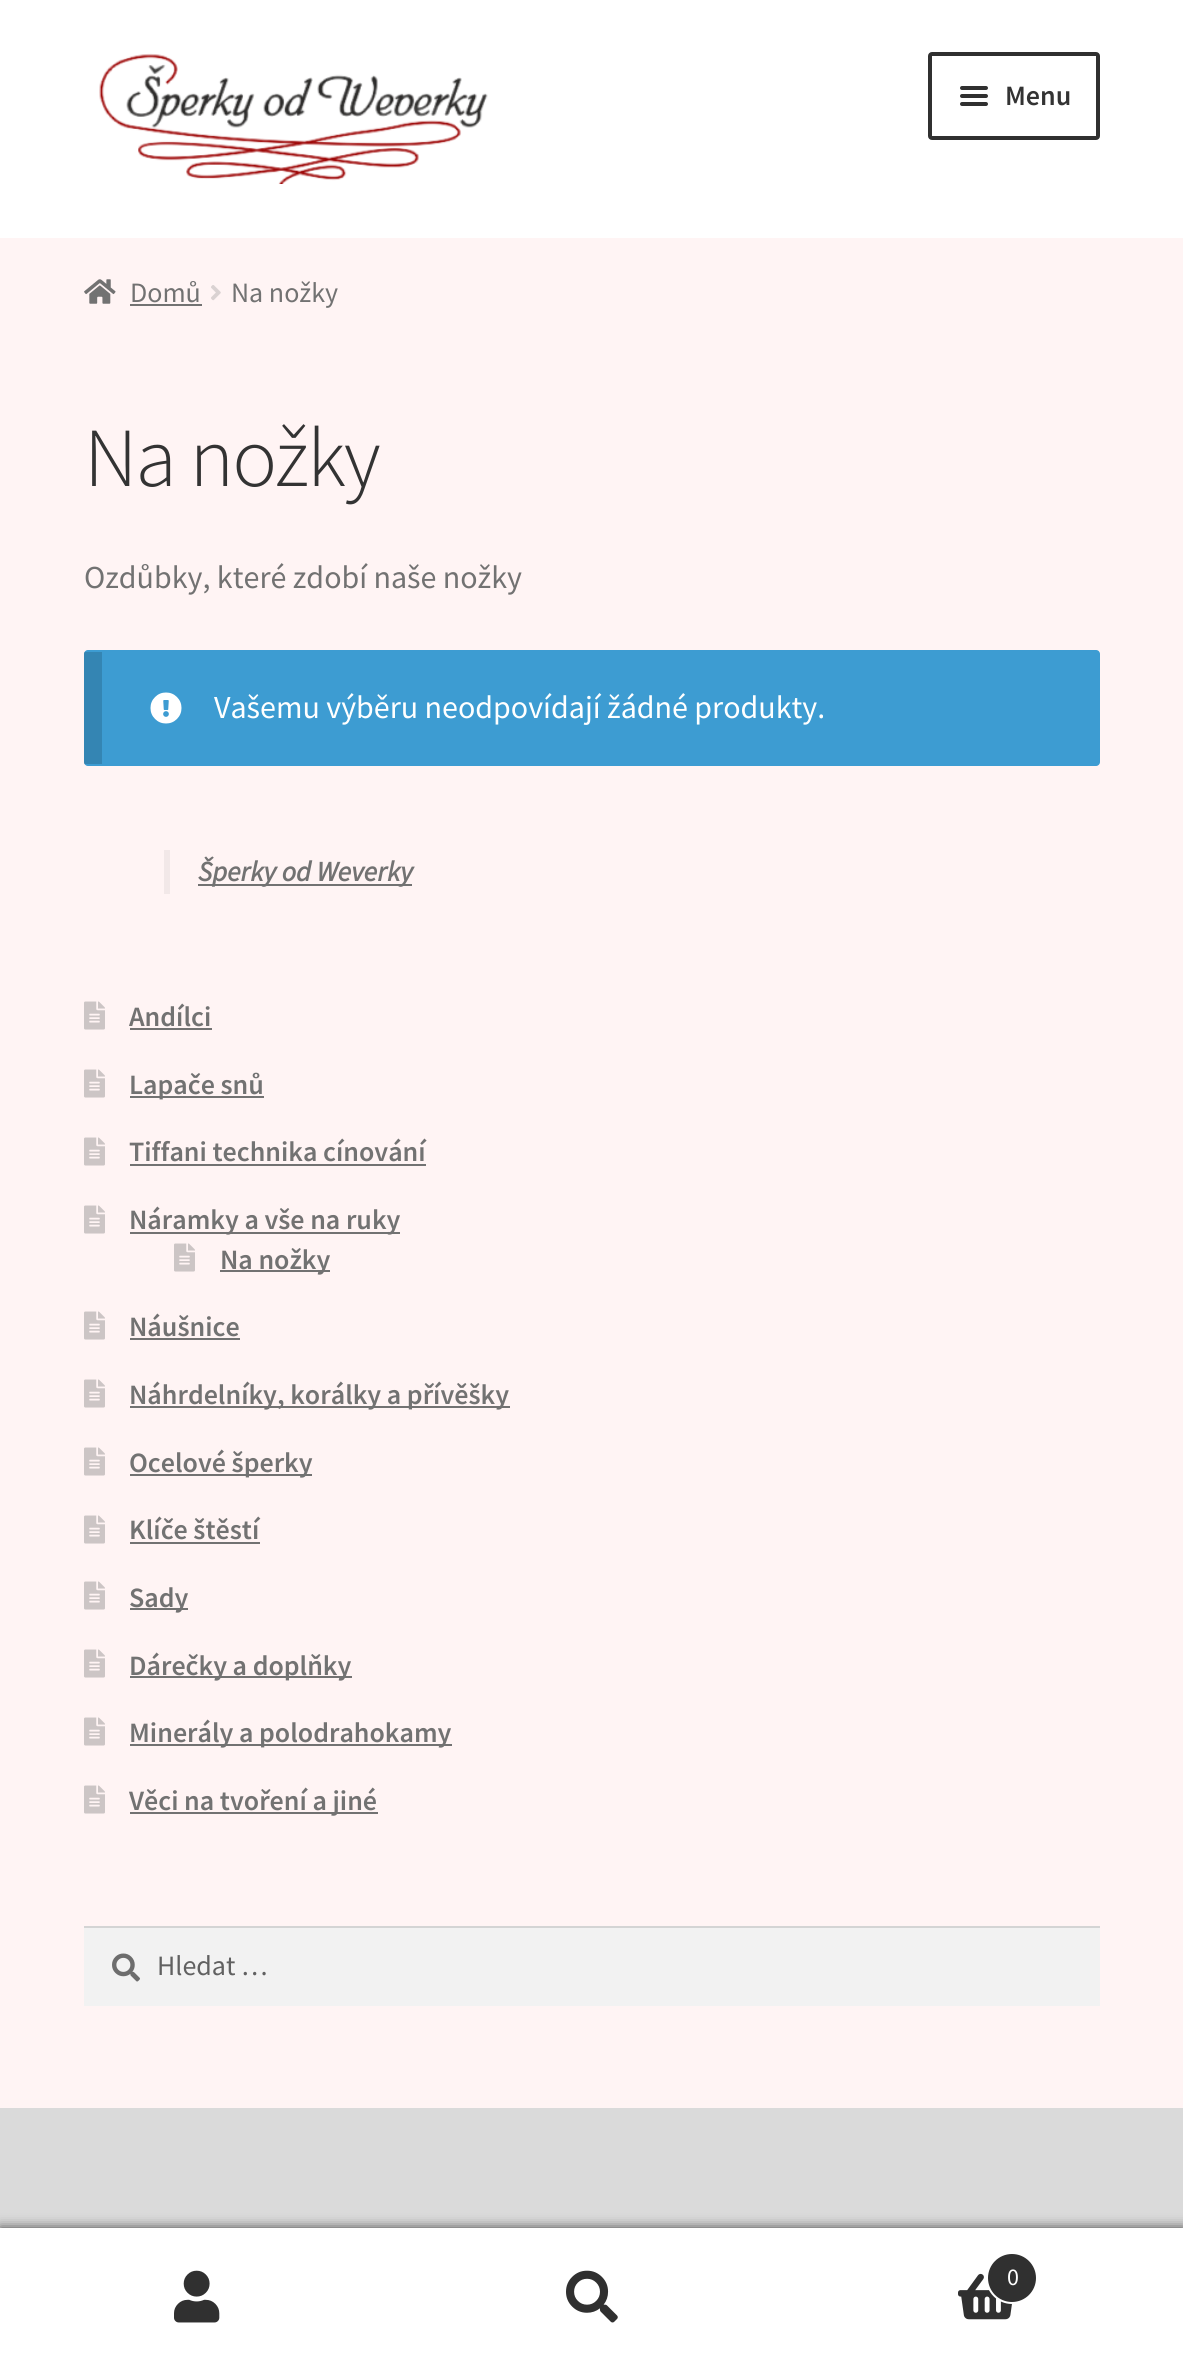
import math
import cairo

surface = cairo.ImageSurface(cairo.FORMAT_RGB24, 1183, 2366)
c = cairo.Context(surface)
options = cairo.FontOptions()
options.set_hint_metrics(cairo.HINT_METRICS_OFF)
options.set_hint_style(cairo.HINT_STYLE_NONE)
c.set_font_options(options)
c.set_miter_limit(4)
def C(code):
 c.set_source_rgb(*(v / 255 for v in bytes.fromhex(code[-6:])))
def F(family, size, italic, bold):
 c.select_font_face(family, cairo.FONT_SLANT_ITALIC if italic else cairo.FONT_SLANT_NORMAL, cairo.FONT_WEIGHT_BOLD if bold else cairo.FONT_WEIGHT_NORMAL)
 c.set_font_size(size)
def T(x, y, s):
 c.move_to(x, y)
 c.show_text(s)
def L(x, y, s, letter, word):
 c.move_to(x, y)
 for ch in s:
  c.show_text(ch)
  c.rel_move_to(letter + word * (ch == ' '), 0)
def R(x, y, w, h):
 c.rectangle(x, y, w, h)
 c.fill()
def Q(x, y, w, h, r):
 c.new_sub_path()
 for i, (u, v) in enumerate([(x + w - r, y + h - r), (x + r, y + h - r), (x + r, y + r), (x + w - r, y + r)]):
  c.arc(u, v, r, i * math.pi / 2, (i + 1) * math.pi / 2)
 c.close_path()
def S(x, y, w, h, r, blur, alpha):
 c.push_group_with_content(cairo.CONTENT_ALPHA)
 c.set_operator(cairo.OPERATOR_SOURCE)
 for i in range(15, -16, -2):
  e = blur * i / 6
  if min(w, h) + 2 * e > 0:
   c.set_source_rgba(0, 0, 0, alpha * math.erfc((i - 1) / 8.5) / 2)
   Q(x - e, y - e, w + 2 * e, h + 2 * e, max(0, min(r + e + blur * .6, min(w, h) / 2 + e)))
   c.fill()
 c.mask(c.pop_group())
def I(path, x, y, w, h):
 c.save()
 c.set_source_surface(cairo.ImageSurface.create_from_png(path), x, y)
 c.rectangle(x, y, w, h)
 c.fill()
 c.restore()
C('fff4f4')
c.paint()
C('ffffff')
R(0,0,1183,238)
I('1.png',99,53,389,131)
Q(930,54,168,84,2)
C('303030')
c.set_line_width(4)
c.stroke()
Q(960,86,28,4,2)
c.fill()
Q(960,94,28,4,2)
c.fill()
F('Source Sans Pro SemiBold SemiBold',28,0,0)
C('333333')
T(1005,105,'Menu')
C('303030')
Q(960,102,28,4,2)
c.fill()
I('2.png',84,279,32,25)
F('Source Sans Pro',28,0,0)
C('727272')
T(130,302,'Domů')
R(130,304,72,2)
I('3.png',211,285,10,16)
T(231,302,'Na nožky')
F('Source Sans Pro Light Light',84,0,0)
C('333333')
L(84,486,'Na nožky',-2,0)
F('Source Sans Pro',32,0,0)
C('727272')
T(84,588,'Ozdůbky, které zdobí naše nožky')
C('3d9cd2')
Q(84,650,1016,116,4)
c.fill()
c.set_source_rgba(0,0,0,0.15)
R(84,652,18,112)
I('4.png',150,692,32,32)
C('ffffff')
T(214,718,'Vašemu výběru neodpovídají žádné produkty.')
C('f2e8e8')
R(164,850,6,44)
C('727272')
R(198,884,214,2)
F('Source Sans Pro',28,1,1)
T(198,881,'Šperky od Weverky')
I('5.png',84,1001,21,29)
F('Source Sans Pro SemiBold SemiBold',28,0,0)
T(129,1026,'Andílci')
R(130,1028,82,2)
I('5.png',84,1069,21,29)
R(130,1096,134,2)
T(129,1094,'Lapače snů')
I('5.png',84,1137,21,29)
T(129,1161,'Tiffani technika cínování')
R(130,1164,296,2)
I('5.png',84,1205,21,29)
R(130,1232,270,2)
T(129,1229,'Náramky a vše na ruky')
I('5.png',174,1243,21,29)
R(220,1270,110,2)
T(220,1269,'Na nožky')
I('5.png',84,1311,21,29)
T(129,1336,'Náušnice')
R(130,1338,110,2)
I('5.png',84,1379,21,29)
R(130,1406,380,2)
T(129,1404,'Náhrdelníky, korálky a přívěšky')
I('5.png',84,1447,21,29)
R(130,1474,182,2)
T(129,1472,'Ocelové šperky')
I('5.png',84,1515,21,29)
T(129,1539,'Klíče štěstí')
R(130,1542,130,2)
I('5.png',84,1581,21,29)
R(130,1608,58,2)
T(129,1607,'Sady')
I('5.png',84,1649,21,29)
R(130,1676,222,2)
T(129,1675,'Dárečky a doplňky')
I('5.png',84,1717,21,29)
R(130,1744,322,2)
T(129,1742,'Minerály a polodrahokamy')
I('5.png',84,1785,21,29)
R(130,1812,248,2)
T(129,1810,'Věci na tvoření a jiné')
C('f2f2f2')
R(84,1928,1016,78)
I('6.png',112,1953,28,29)
C('d4d4d4')
R(84,1926,1016,2)
F('Source Sans Pro',28,0,0)
C('616161')
T(157,1975,'Hledat …')
C('dadada')
R(0,2108,1183,120)
C('000000')
S(0,2228,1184,138,0,6,.7)
C('ffffff')
R(0,2228,1183,2)
R(0,2230,1183,136)
I('7.png',174,2270,46,53)
I('8.png',566,2270,52,53)
I('9.png',958,2273,55,47)
C('303030')
c.arc(1012,2278,25,0,2 * math.pi)
c.fill_preserve()
C('ffffff')
c.set_line_width(2)
c.stroke()
F('Source Sans Pro',24,0,0)
T(1007,2285,'0')
surface.write_to_png('o.png')
